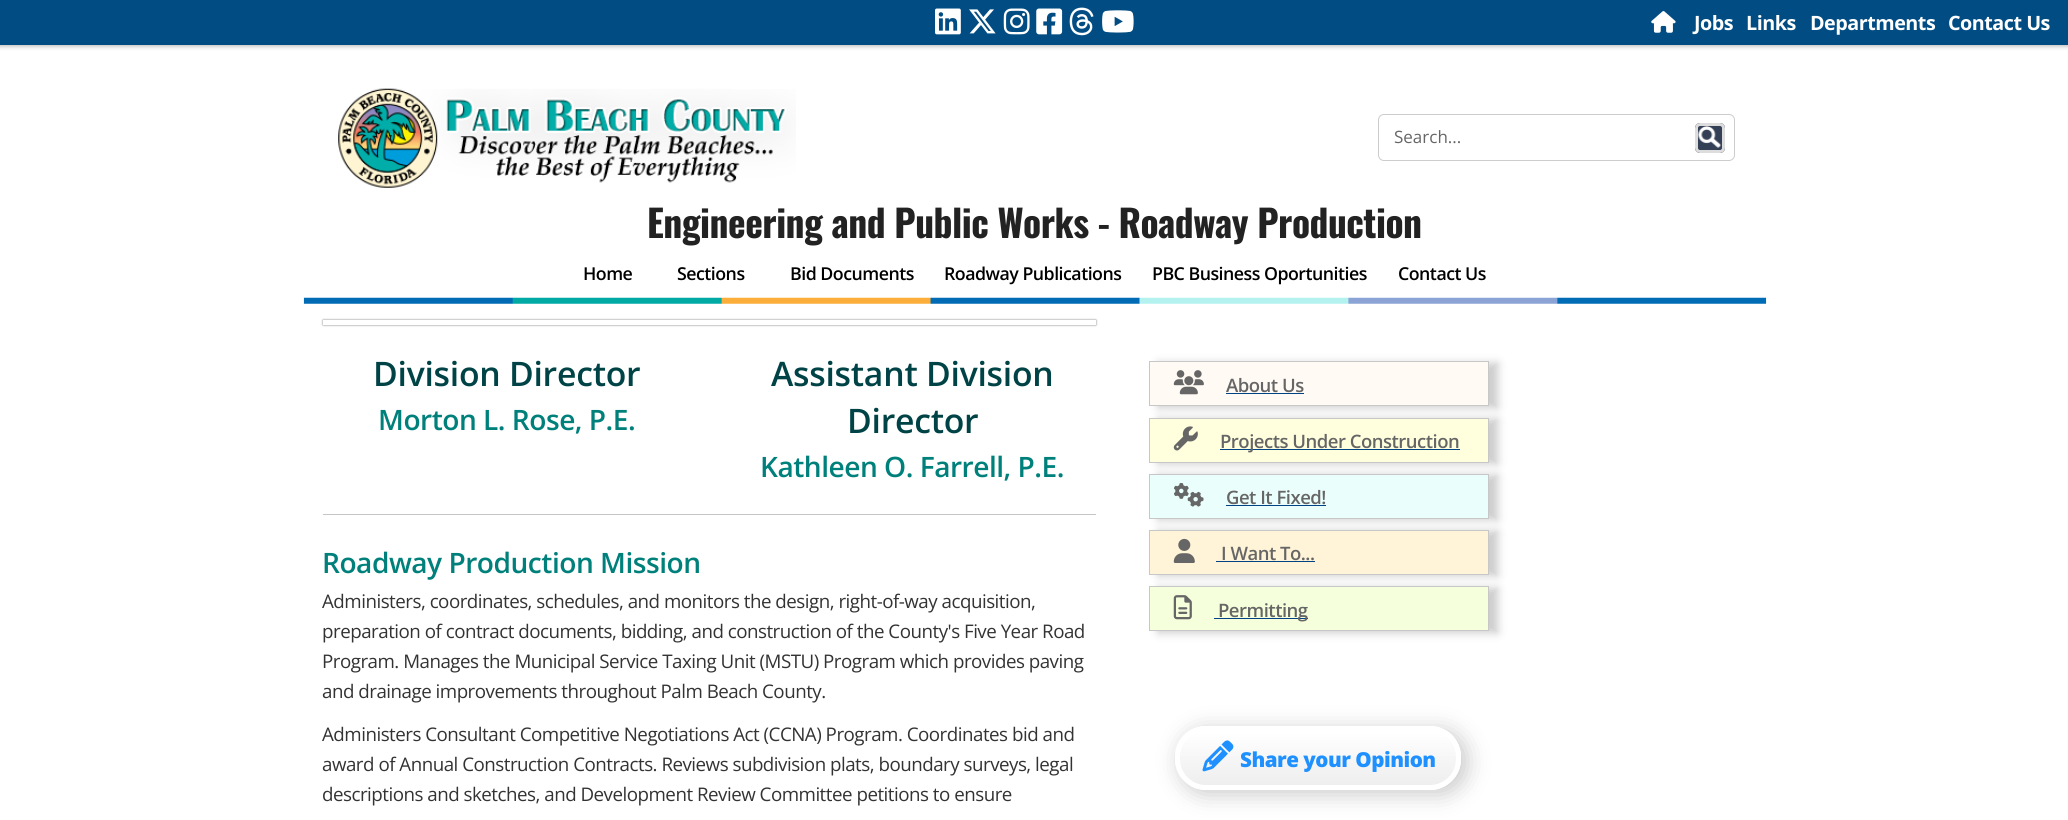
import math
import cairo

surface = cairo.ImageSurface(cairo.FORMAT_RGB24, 2068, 820)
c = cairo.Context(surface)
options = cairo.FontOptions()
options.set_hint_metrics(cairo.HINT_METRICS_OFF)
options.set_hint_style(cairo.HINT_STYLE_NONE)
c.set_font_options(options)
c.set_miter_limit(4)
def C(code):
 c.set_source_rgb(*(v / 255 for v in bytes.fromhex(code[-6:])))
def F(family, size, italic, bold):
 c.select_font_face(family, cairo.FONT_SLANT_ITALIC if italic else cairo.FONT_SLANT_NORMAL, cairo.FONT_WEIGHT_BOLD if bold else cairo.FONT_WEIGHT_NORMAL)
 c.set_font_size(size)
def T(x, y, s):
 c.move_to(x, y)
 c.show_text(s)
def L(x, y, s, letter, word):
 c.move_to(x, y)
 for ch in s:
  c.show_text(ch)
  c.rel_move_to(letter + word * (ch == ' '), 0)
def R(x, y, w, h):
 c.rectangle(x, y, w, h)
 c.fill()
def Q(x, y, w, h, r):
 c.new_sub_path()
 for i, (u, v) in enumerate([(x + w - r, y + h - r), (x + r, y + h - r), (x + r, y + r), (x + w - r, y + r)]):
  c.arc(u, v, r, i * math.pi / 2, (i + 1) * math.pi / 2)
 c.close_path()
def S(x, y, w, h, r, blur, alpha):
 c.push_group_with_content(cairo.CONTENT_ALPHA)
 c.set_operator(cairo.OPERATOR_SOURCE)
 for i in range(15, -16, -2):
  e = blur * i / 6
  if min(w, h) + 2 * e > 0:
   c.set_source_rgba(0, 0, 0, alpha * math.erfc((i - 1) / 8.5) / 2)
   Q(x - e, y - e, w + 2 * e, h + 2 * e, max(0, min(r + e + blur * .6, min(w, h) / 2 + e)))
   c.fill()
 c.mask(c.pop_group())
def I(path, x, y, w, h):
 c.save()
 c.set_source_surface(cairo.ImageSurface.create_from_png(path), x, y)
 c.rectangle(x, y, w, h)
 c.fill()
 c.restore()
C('ffffff')
c.paint()
C('000000')
S(-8,1,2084,45,0,2.5,.3)
C('014c82')
R(0,0,2068,45)
I('1.png',935,8,26,27)
I('2.png',969,9,27,25)
I('3.png',1003,8,27,27)
I('4.png',1036,8,27,27)
I('5.png',1069,7,25,29)
I('6.png',1102,10,32,23)
I('7.png',1651,11,25,22)
F('Open Sans',19.75,0,1)
C('ffffff')
L(1694,30,'Jobs',-.5,0)
L(1746,30,'Links',-.5,0)
L(1810,30,'Departments',-.5,0)
L(1948,30,'Contact Us',-.5,0)
I('8.png',338,88,458,100)
Q(1378.5,114.5,356,46,5.5)
C('cccccc')
c.set_line_width(1)
c.stroke()
F('Open Sans',17,0,0)
C('666666')
T(1394,143,'Search...')
C('344055')
Q(1695,123,30,30,5)
c.fill()
I('9.png',1698,126,24,22)
Q(1696.5,124.5,27,27,3.5)
C('dddddd')
c.set_line_width(3)
c.stroke()
F('Oswald',37.5,0,1)
C('222222')
L(647,238,'Engineering and Public Works - Roadway Production',-.5,0)
F('Open Sans SemiBold',17.75,0,0)
C('000000')
L(583,280,'Home',-.5,0)
L(677,280,'Sections',-.5,0)
L(790,280,'Bid Documents',-.5,0)
L(944,280,'Roadway Publications',-.5,0)
L(1152,280,'PBC Business Oportunities',-.5,0)
L(1398,280,'Contact Us',-.5,0)
I('10.png',303,297,1464,7)
c.save()
c.set_fill_rule(cairo.FILL_RULE_EVEN_ODD)
c.new_path()
c.move_to(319,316)
c.line_to(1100,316)
c.line_to(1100,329)
c.line_to(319,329)
c.close_path()
c.move_to(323,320)
c.line_to(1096,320)
c.line_to(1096,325)
c.line_to(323,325)
c.close_path()
c.clip()
C('777777')
S(323,320,773,5,0,1,1)
c.restore()
F('Open Sans SemiBold',33.75,0,0)
C('004346')
L(373,386,'Division Director',-.25,0)
F('Open Sans SemiBold',28.1,0,0)
C('00807b')
L(378,430,'Morton L. Rose, P.E.',-.5,0)
F('Open Sans SemiBold',33.75,0,0)
C('004346')
L(771,386,'Assistant Division',-.25,0)
L(847,433,'Director',-.25,0)
F('Open Sans SemiBold',28.1,0,0)
C('00807b')
L(760,477,'Kathleen O. Farrell, P.E.',-.5,0)
C('c6c6c6')
R(323,514,773,1)
C('00807b')
L(322,573,'Roadway Production Mission',-.5,0)
F('Open Sans',18.75,0,0)
C('333333')
L(322,608,'Administers, coordinates, schedules, and monitors the design, right-of-way acquisition,',-.5,0)
L(322,638,'preparation of contract documents, bidding, and construction of the County\'s Five Year Road',-.5,0)
L(322,668,'Program. Manages the Municipal Service Taxing Unit (MSTU) Program which provides paving',-.5,0)
L(322,698,'and drainage improvements throughout Palm Beach County.',-.5,0)
L(322,741,'Administers Consultant Competitive Negotiations Act (CCNA) Program. Coordinates bid and',-.5,0)
L(322,771,'award of Annual Construction Contracts. Reviews subdivision plats, boundary surveys, legal',-.5,0)
L(322,801,'descriptions and sketches, and Development Review Committee petitions to ensure',-.5,0)
C('000000')
S(1158,363,340,45,0,4.5,.2)
C('fffaf4')
c.rectangle(1149.5,361.5,339,44)
c.fill_preserve()
C('c7c7c7')
c.set_line_width(1)
c.stroke()
I('11.png',1173,370,31,25)
F('Open Sans SemiBold',18.5,0,0)
C('666666')
L(1226,392,'About Us',-.5,0)
C('004385')
R(1226,393,78,1)
C('000000')
S(1158,419,340,45,0,4.5,.2)
C('ffffde')
c.rectangle(1149.5,418.5,339,44)
c.fill_preserve()
C('c7c7c7')
c.stroke()
I('12.png',1173,426,25,25)
C('004385')
R(1220,449,240,1)
C('666666')
L(1220,448,'Projects Under Construction',-.5,0)
C('000000')
S(1158,475,340,45,0,4.5,.2)
C('eafffc')
c.rectangle(1149.5,474.5,339,44)
c.fill_preserve()
C('c7c7c7')
c.stroke()
I('13.png',1174,483,30,24)
C('666666')
L(1226,504,'Get It Fixed!',-.5,0)
C('004385')
R(1226,505,100,1)
C('000000')
S(1158,531,340,45,0,4.5,.2)
C('fff4d7')
c.rectangle(1149.5,530.5,339,44)
c.fill_preserve()
C('c7c7c7')
c.stroke()
I('14.png',1173,538,22,25)
C('666666')
L(1221,560,'I Want To...',-.5,0)
C('004385')
R(1216,561,99,1)
C('000000')
S(1158,588,340,45,0,4.5,.2)
C('f5ffdb')
c.rectangle(1149.5,586.5,339,44)
c.fill_preserve()
C('c7c7c7')
c.stroke()
I('15.png',1173,595,19,25)
C('004385')
R(1214,618,94,1)
C('666666')
L(1218,617,'Permitting',-.5,0)
c.save()
c.set_fill_rule(cairo.FILL_RULE_EVEN_ODD)
c.new_path()
c.move_to(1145,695)
c.line_to(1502,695)
c.line_to(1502,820)
c.line_to(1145,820)
c.close_path()
c.move_to(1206,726)
c.line_to(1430,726)
c.curve_to(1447,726,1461,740,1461,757)
c.line_to(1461,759)
c.curve_to(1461,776,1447,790,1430,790)
c.line_to(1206,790)
c.curve_to(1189,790,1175,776,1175,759)
c.line_to(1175,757)
c.curve_to(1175,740,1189,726,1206,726)
c.close_path()
c.clip()
C('000000')
S(1179,729,289,66,33,11,.2)
c.restore()
c.save()
Q(1175,726,286,64,31)
c.clip()
gradient = cairo.LinearGradient(1318,731,1318,785)
gradient.add_color_stop_rgba(0,1,1,1,1)
gradient.add_color_stop_rgba(.47,0.965,0.965,0.965,.9)
gradient.add_color_stop_rgba(1,0.929,0.929,0.929,.9)
c.set_source(gradient)
R(1175,731,286,54)
c.restore()
Q(1177.5,728.5,281,59,28.5)
C('ffffff')
c.set_line_width(5)
c.stroke()
I('16.png',1202,740,32,32)
F('Open Sans ExtraBold',20.6,0,0)
C('1e90ff')
L(1240,767,'Share your Opinion',-.5,0)
surface.write_to_png('o.png')
